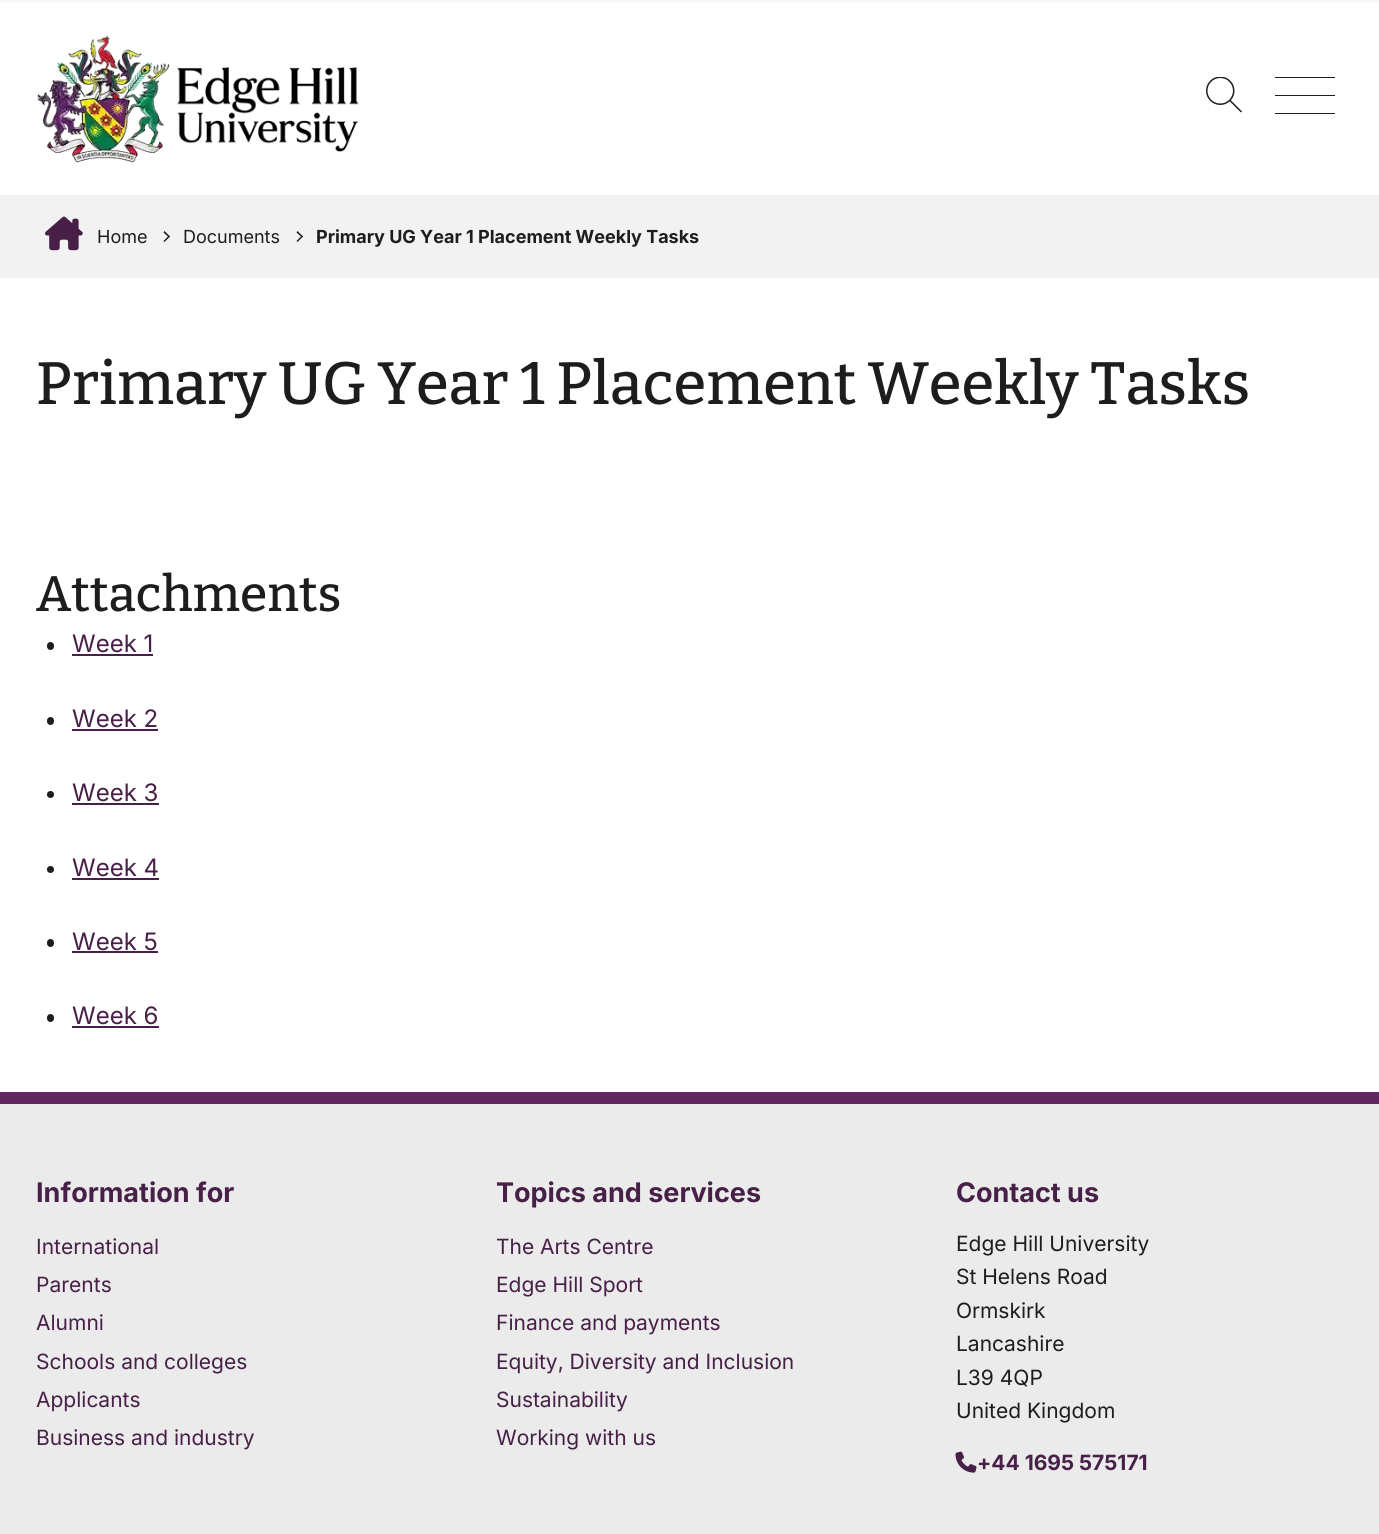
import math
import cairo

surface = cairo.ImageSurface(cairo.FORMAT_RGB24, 1379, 1534)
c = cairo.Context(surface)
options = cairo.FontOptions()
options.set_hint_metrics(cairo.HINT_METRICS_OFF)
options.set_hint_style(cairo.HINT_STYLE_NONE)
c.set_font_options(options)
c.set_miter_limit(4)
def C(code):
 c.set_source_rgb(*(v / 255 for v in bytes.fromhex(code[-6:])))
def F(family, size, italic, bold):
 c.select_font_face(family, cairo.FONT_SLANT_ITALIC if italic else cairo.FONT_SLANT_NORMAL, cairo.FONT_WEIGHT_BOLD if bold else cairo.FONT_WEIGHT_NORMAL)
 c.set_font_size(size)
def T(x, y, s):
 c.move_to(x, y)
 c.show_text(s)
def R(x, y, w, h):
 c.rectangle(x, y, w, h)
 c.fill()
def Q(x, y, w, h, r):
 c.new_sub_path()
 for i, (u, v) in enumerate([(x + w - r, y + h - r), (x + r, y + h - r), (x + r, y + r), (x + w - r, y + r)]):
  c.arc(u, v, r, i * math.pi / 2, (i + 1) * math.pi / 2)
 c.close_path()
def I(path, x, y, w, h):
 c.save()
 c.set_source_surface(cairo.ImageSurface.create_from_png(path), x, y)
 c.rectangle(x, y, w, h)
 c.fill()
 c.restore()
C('ffffff')
c.paint()
C('f8f8f8')
R(0,0,1379,3)
I('1.png',37,35,322,128)
I('2.png',1206,77,36,36)
C('1d1d1d')
R(1275,77,60,1)
R(1275,95,60,1)
R(1275,113,60,1)
C('f2f2f2')
R(0,195,1379,83)
I('3.png',45,216,38,35)
F('Inter',18,0,0)
C('1d1d1d')
T(97,243,'Home')
c.new_path()
c.move_to(164.5,231)
c.line_to(170,236.5)
c.line_to(169,237.5)
c.line_to(163.5,232.5)
c.close_path()
c.fill()
c.new_path()
c.move_to(169,235.5)
c.line_to(170,236.5)
c.line_to(164.5,242)
c.line_to(163.5,241)
c.close_path()
c.fill()
T(183,243,'Documents')
c.new_path()
c.move_to(297.5,231)
c.line_to(303,236.5)
c.line_to(302,237.5)
c.line_to(296.5,232.5)
c.close_path()
c.fill()
c.new_path()
c.move_to(302,235.5)
c.line_to(303,236.5)
c.line_to(297.5,242)
c.line_to(296.5,241)
c.close_path()
c.fill()
F('Inter',18,0,1)
T(316,243,'Primary UG Year 1 Placement Weekly Tasks')
F('Bitter Medium',59.75,0,0)
T(36,404,'Primary UG Year 1 Placement Weekly Tasks')
F('Bitter Medium',49.75,0,0)
T(36,611,'Attachments')
Q(47,642,7,8,3.5)
c.fill()
F('Inter',24,0,0)
C('471f47')
T(72,652,'Week 1')
R(72,654,81,2)
C('1d1d1d')
Q(47,717,7,8,3.5)
c.fill()
C('471f47')
T(72,727,'Week 2')
R(72,729,86,2)
C('1d1d1d')
c.new_path()
c.arc(50.5,794.5,3.5,0,2 * math.pi)
c.fill()
C('471f47')
T(72,801,'Week 3')
R(72,803,87,2)
C('1d1d1d')
c.new_path()
c.arc(50.5,869.5,3.5,0,2 * math.pi)
c.fill()
C('471f47')
T(72,876,'Week 4')
R(72,878,87,2)
C('1d1d1d')
Q(47,939,7,8,3.5)
c.fill()
C('471f47')
T(72,950,'Week 5')
R(72,951,86,2)
C('1d1d1d')
Q(47,1014,7,8,3.5)
c.fill()
C('471f47')
T(72,1024,'Week 6')
R(72,1026,87,2)
C('ebebeb')
R(0,1104,1379,430)
C('5f295f')
R(0,1092,1379,12)
F('Inter',27,0,1)
C('471f47')
T(36,1202,'Information for')
F('Inter',21,0,0)
T(36,1254,'International')
T(36,1292,'Parents')
T(36,1330,'Alumni')
T(36,1369,'Schools and colleges')
T(36,1407,'Applicants')
T(36,1445,'Business and industry')
F('Inter',27,0,1)
T(496,1202,'Topics and services')
F('Inter',21,0,0)
T(496,1254,'The Arts Centre')
T(496,1292,'Edge Hill Sport')
T(496,1330,'Finance and payments')
T(496,1369,'Equity, Diversity and Inclusion')
T(496,1407,'Sustainability')
T(496,1445,'Working with us')
F('Inter',27,0,1)
T(956,1202,'Contact us')
F('Inter',21,0,0)
C('1d1d1d')
T(956,1251,'Edge Hill University')
T(956,1284,'St Helens Road')
T(956,1318,'Ormskirk')
T(956,1351,'Lancashire')
T(956,1385,'L39 4QP')
T(956,1418,'United Kingdom')
I('4.png',955,1451,22,22)
F('Inter',21,0,1)
C('471f47')
T(977,1470,'+44 1695 575171')
surface.write_to_png('o.png')
